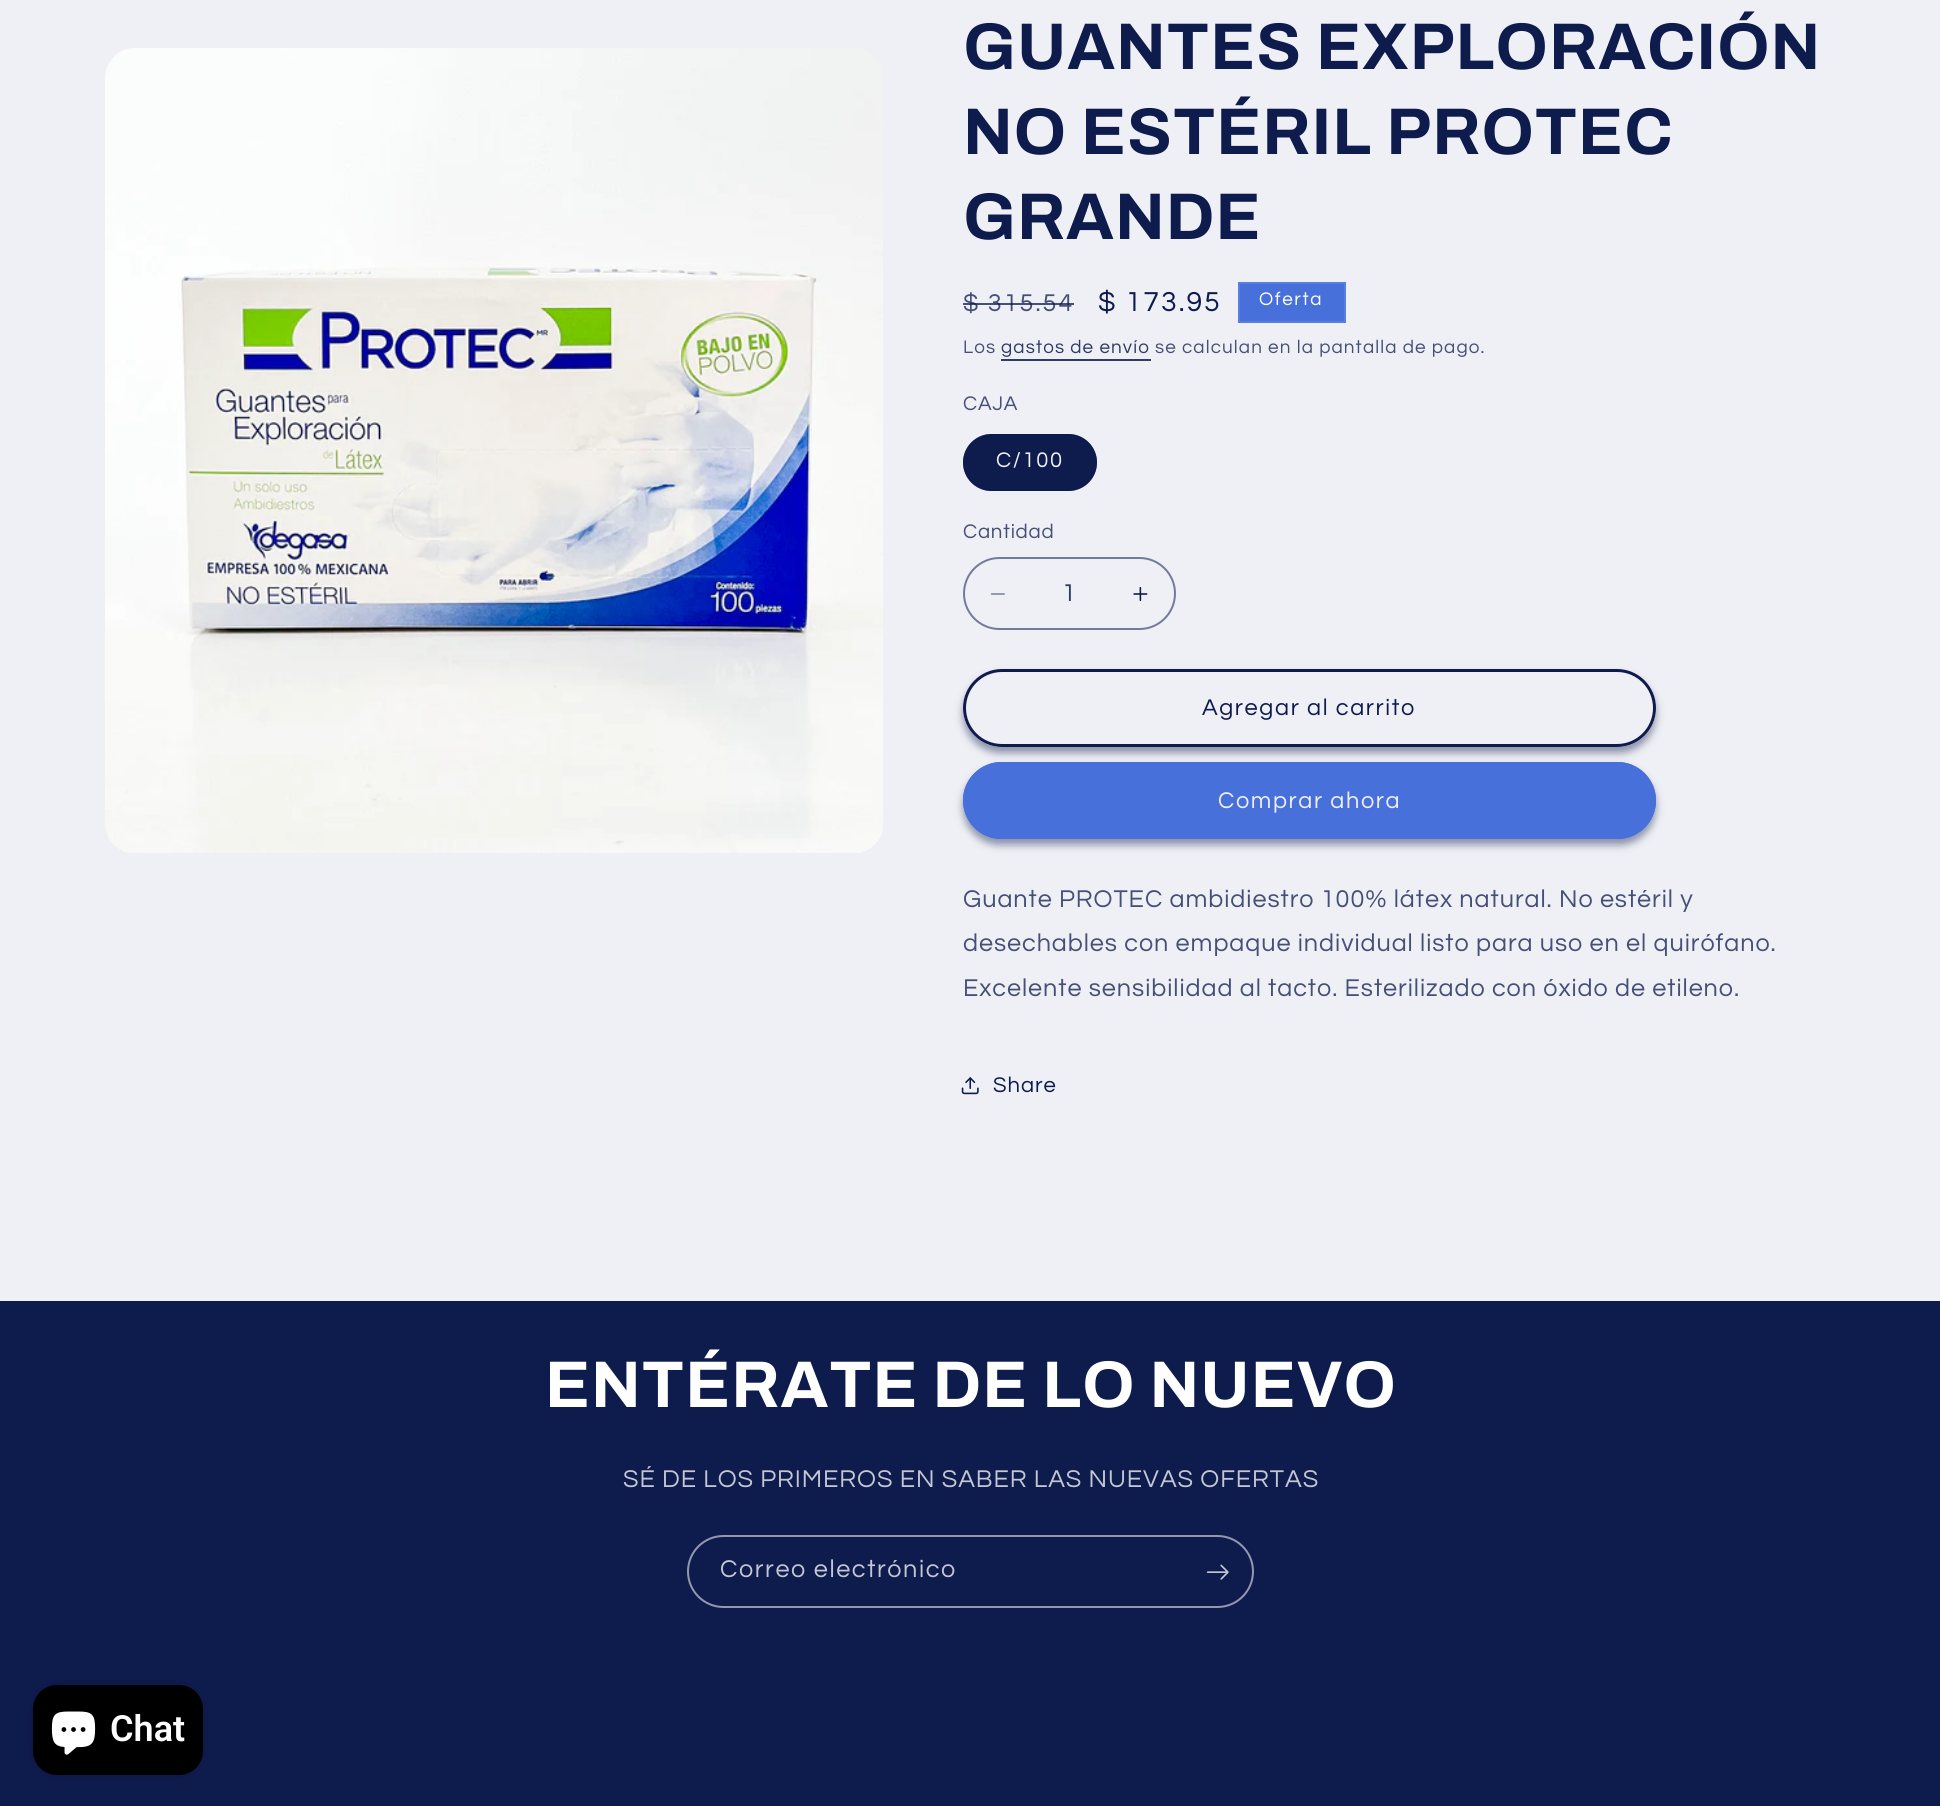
import math
import cairo

surface = cairo.ImageSurface(cairo.FORMAT_RGB24, 1940, 1806)
c = cairo.Context(surface)
options = cairo.FontOptions()
options.set_hint_metrics(cairo.HINT_METRICS_OFF)
options.set_hint_style(cairo.HINT_STYLE_NONE)
c.set_font_options(options)
c.set_miter_limit(4)
def C(code):
 c.set_source_rgb(*(v / 255 for v in bytes.fromhex(code[-6:])))
def F(family, size, italic, bold):
 c.select_font_face(family, cairo.FONT_SLANT_ITALIC if italic else cairo.FONT_SLANT_NORMAL, cairo.FONT_WEIGHT_BOLD if bold else cairo.FONT_WEIGHT_NORMAL)
 c.set_font_size(size)
def T(x, y, s):
 c.move_to(x, y)
 c.show_text(s)
def L(x, y, s, letter, word):
 c.move_to(x, y)
 for ch in s:
  c.show_text(ch)
  c.rel_move_to(letter + word * (ch == ' '), 0)
def R(x, y, w, h):
 c.rectangle(x, y, w, h)
 c.fill()
def Q(x, y, w, h, r):
 c.new_sub_path()
 for i, (u, v) in enumerate([(x + w - r, y + h - r), (x + r, y + h - r), (x + r, y + r), (x + w - r, y + r)]):
  c.arc(u, v, r, i * math.pi / 2, (i + 1) * math.pi / 2)
 c.close_path()
def S(x, y, w, h, r, blur, alpha):
 c.push_group_with_content(cairo.CONTENT_ALPHA)
 c.set_operator(cairo.OPERATOR_SOURCE)
 for i in range(15, -16, -2):
  e = blur * i / 6
  if min(w, h) + 2 * e > 0:
   c.set_source_rgba(0, 0, 0, alpha * math.erfc((i - 1) / 8.5) / 2)
   Q(x - e, y - e, w + 2 * e, h + 2 * e, max(0, min(r + e + blur * .6, min(w, h) / 2 + e)))
   c.fill()
 c.mask(c.pop_group())
def I(path, x, y, w, h):
 c.save()
 c.set_source_surface(cairo.ImageSurface.create_from_png(path), x, y)
 c.rectangle(x, y, w, h)
 c.fill()
 c.restore()
C('eff0f5')
c.paint()
I('1.png',105,48,778,805)
F('Archivo',66,0,1)
C('0e1b4d')
L(963,69,'GUANTES EXPLORACIÓN',1,0)
L(963,154,'NO ESTÉRIL PROTEC',1,0)
L(963,239,'GRANDE',1,0)
F('Questrial',25.2,0,0)
C('465077')
L(963,311,'$ 315.54',2,0)
c.set_source_rgba(0.055,0.106,0.302,0.75)
R(963,303,111,2)
F('Questrial',28.5,0,0)
C('0e1b4d')
L(1098,311,'$ 173.95',2,0)
C('4770db')
c.rectangle(1239,283,106,39)
c.fill_preserve()
C('597edf')
c.stroke()
F('Questrial',18.9,0,0)
C('ffffff')
L(1259,305,'Oferta',1.6,0)
C('465077')
L(963,353,'Los',1.1,0)
C('303b66')
L(1001,353,'gastos de envío',1.1,0)
R(1001,359,150,2)
C('465077')
L(1155,353,'se calculan en la pantalla de pago.',1.1,0)
F('Questrial',20.5,0,0)
L(963,410,'CAJA',.75,0)
C('0e1b4d')
Q(963,434,134,57,28.5)
c.fill()
Q(964,435,132,55,27.5)
c.set_source_rgba(0.055,0.106,0.302,0.55)
c.stroke()
F('Questrial',22,0,0)
C('eff0f5')
L(996,467,'C/100',1.6,0)
F('Questrial',20.5,0,0)
C('465077')
L(963,538,'Cantidad',.75,0)
I('2.png',990,593,15,2)
I('3.png',1133,587,15,14)
Q(964,558,211,71,35.5)
C('737b99')
c.stroke()
F('Questrial',25.2,0,0)
C('303b66')
T(1062,601,'1')
C('0e1b4d')
S(963,675,693,78,39,4,.45)
C('eff0f5')
Q(963,669,693,78,39)
c.fill()
Q(964.5,670.5,690,75,37.5)
c.set_line_width(3)
c.stroke()
Q(964.5,670.5,690,75,37.5)
C('0e1b4d')
c.stroke()
F('Questrial',23.6,0,0)
L(1202,715,'Agregar al carrito',1.6,0)
C('0e1b4d')
S(963,768,693,77,38.5,4,.45)
C('4770db')
Q(963,762,693,77,38.5)
c.fill()
Q(964.5,763.5,690,74,37)
c.stroke()
C('eff0f5')
L(1218,808,'Comprar ahora',1.6,0)
F('Questrial',25.2,0,0)
C('465077')
L(963,907,'Guante PROTEC ambidiestro 100% látex natural. No estéril y',.95,0)
L(963,951,'desechables con empaque individual listo para uso en el quirófano.',.95,0)
L(963,996,'Excelente sensibilidad al tacto. Esterilizado con óxido de etileno.',.95,0)
I('4.png',961,1077,18,18)
F('Questrial',22,0,0)
C('0e1b4d')
L(993,1092,'Share',.95,0)
R(0,1301,1940,505)
F('Archivo',66,0,1)
C('ffffff')
L(545,1407,'ENTÉRATE DE LO NUEVO',1,0)
F('Questrial',25.2,0,0)
C('c3c6d3')
L(623,1487,'SÉ DE LOS PRIMEROS EN SABER LAS NUEVAS OFERTAS',.95,0)
Q(688,1536,565,71,35.5)
C('9398af')
c.set_line_width(2)
c.stroke()
C('c3c6d3')
L(720,1577,'Correo electrónico',1.6,0)
I('5.png',1206,1564,23,16)
C('000000')
S(33,1685,170,90,24,4,.15)
C('000000')
Q(33,1685,170,90,24)
c.fill()
I('6.png',51,1711,45,44)
F('Roboto SemiBold',36,0,0)
C('ffffff')
T(110,1741,'Chat')
surface.write_to_png('o.png')
